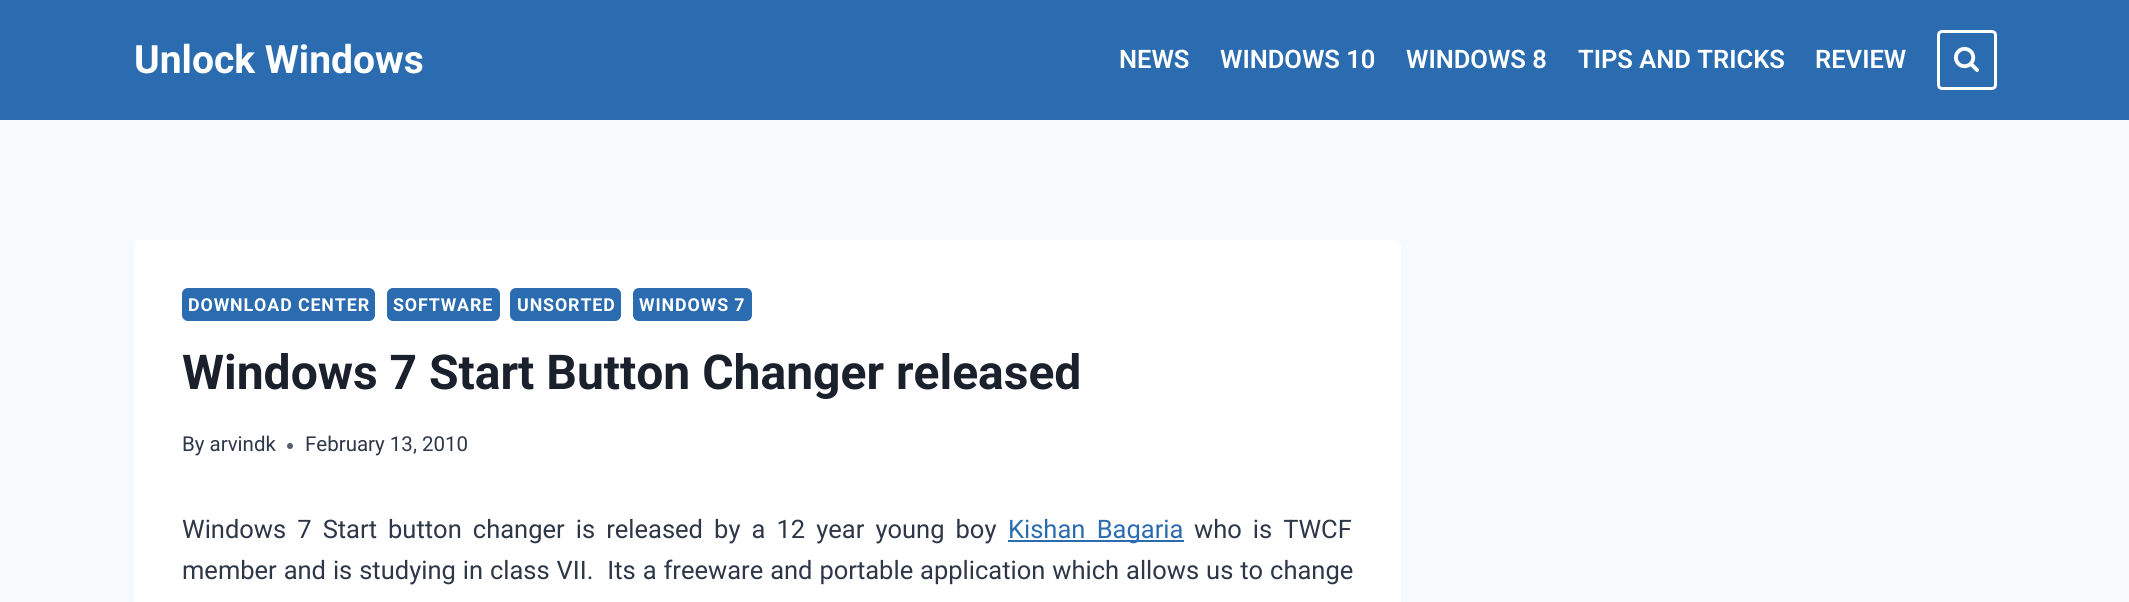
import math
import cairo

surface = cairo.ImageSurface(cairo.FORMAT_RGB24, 2129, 602)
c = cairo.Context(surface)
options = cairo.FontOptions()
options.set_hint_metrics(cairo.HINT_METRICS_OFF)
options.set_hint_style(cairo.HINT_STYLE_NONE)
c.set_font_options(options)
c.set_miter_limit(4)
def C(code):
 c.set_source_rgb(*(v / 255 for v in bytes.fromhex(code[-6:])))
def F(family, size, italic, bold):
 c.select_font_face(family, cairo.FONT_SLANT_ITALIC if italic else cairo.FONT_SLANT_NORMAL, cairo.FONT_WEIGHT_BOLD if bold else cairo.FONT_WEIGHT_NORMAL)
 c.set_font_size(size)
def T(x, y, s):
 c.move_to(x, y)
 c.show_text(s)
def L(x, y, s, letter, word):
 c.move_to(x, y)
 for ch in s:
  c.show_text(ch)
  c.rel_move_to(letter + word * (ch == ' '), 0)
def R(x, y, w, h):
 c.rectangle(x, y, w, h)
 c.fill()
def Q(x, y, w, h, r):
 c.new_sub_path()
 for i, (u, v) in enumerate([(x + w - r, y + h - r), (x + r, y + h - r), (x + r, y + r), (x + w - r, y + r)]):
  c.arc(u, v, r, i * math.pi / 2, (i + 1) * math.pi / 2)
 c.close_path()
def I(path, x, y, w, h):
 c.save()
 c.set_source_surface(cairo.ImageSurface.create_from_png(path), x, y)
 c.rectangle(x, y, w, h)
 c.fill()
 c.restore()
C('f7fafc')
c.paint()
C('2b6cb0')
R(0,0,2129,120)
F('Roboto',39,0,1)
C('ffffff')
T(134,73,'Unlock Windows')
F('Roboto SemiBold',25.5,0,0)
T(1119,68,'NEWS')
T(1220,68,'WINDOWS 10')
T(1406,68,'WINDOWS 8')
T(1578,68,'TIPS AND TRICKS')
T(1815,68,'REVIEW')
Q(1938.5,31.5,57,57,3.5)
c.set_line_width(3)
c.stroke()
I('1.png',1954,46,25,26)
Q(134,240,1267,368,6)
c.fill()
C('2b6cb0')
Q(182,288,193,33,6)
c.fill()
F('Roboto',17.8,0,1)
C('ffffff')
L(188,311,'DOWNLOAD CENTER',.9,0)
C('2b6cb0')
Q(387,288,113,33,6)
c.fill()
C('ffffff')
L(393,311,'SOFTWARE',.9,0)
C('2b6cb0')
Q(510,288,111,33,6)
c.fill()
C('ffffff')
L(517,311,'UNSORTED',.9,0)
C('2b6cb0')
Q(633,288,119,33,6)
c.fill()
C('ffffff')
L(639,311,'WINDOWS 7',.9,0)
F('Roboto',48,0,1)
C('1a202c')
T(182,389,'Windows 7 Start Button Changer released')
F('Roboto',20.5,0,0)
C('2d3748')
T(182,451,'By arvindk')
C('575f6d')
c.new_path()
c.arc(290,446,3,0,2 * math.pi)
c.fill()
C('2d3748')
T(305,451,'February 13, 2010')
F('Roboto',25.5,0,0)
L(182,538,'Windows 7 Start button changer is released by a 12 year young boy',0,4.75)
C('2b6cb0')
R(1008,540,176,2)
L(1008,538,'Kishan Bagaria',0,5)
C('2d3748')
L(1194,538,'who is TWCF',0,4.75)
L(182,579,'member and is studying in class VII.  Its a freeware and portable application which allows us to change',0,.6)
surface.write_to_png('o.png')
